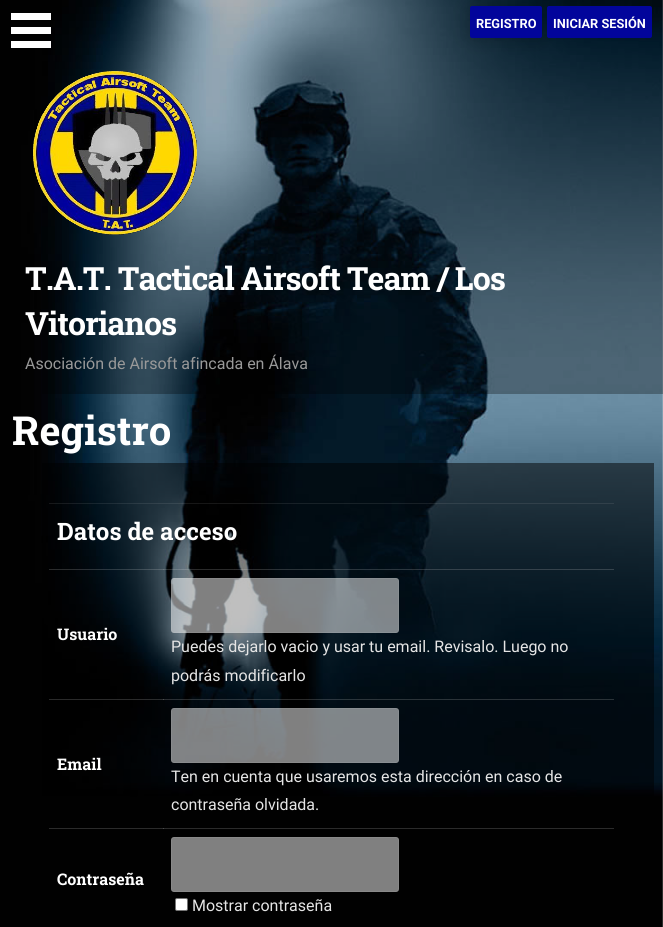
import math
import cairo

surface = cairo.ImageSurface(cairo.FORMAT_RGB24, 663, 927)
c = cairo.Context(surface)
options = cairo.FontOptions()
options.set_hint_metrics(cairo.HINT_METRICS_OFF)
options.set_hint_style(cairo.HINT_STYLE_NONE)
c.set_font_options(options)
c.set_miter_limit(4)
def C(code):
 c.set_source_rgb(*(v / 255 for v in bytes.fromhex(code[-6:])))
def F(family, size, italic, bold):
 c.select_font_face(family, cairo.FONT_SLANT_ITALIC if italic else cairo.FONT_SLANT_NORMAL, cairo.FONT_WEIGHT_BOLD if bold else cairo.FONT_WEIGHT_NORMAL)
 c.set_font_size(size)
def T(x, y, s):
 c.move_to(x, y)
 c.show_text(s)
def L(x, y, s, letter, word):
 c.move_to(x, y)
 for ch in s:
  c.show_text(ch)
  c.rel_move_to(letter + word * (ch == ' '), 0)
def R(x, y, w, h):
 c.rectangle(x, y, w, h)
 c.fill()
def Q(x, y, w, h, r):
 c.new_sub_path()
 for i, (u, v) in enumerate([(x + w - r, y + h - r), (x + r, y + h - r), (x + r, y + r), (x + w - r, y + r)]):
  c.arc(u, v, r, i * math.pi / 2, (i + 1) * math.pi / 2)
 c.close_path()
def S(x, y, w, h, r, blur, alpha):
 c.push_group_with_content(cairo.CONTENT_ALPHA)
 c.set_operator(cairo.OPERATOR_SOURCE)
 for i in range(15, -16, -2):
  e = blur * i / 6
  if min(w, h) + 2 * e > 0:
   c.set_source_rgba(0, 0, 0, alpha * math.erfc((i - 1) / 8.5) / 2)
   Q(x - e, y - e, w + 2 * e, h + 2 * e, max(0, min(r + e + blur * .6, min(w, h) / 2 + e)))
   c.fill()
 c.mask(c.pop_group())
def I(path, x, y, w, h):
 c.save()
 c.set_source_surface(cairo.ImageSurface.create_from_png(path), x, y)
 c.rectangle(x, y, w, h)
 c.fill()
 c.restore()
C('ffffff')
c.paint()
I('1.png',0,0,663,927)
c.set_source_rgba(0,0,0,0.3)
R(42,0,621,394)
C('ffffff')
R(11,13,40,7)
R(11,27,40,7)
R(11,41,40,7)
C('000000')
S(470,6,72,32,2,9,.2)
C('02059b')
Q(470,6,72,32,2)
c.fill()
F('Roboto',12.75,0,1)
C('ffffff')
T(476,28,'REGISTRO')
C('02059b')
Q(547,6,105,32,2)
c.fill()
C('ffffff')
T(553,28,'INICIAR SESIÓN')
I('2.png',33,71,164,164)
F('Roboto Slab',32,0,1)
L(25,290,'T.A.T. Tactical Airsoft Team / Los',-.95,0)
L(25,335,'Vitorianos',-.95,0)
F('Roboto',16,0,0)
C('999999')
T(25,369,'Asociación de Airsoft afincada en Álava')
F('Roboto Slab',40,0,1)
C('ffffff')
T(12,445,'Registro')
c.set_source_rgba(0,0,0,0.5)
R(42,463,612,333)
c.set_source_rgba(0.898,0.898,0.898,0.1)
R(49,503,565,1)
R(163,569,451,1)
R(49,569,115,1)
R(49,569,565,1)
F('Roboto Slab',24,0,1)
C('ffffff')
T(57,540,'Datos de acceso')
c.set_source_rgba(0.898,0.898,0.898,0.1)
R(163,699,451,1)
R(49,699,115,1)
R(163,699,451,1)
R(49,699,115,1)
F('Roboto Slab',16,0,1)
C('ffffff')
T(57,640,'Usuario')
c.set_source_rgba(1,1,1,0.5)
Q(171,578,228,55,3)
c.fill()
Q(171.5,578.5,227,54,2.5)
c.set_source_rgba(0.898,0.898,0.898,0.1)
c.set_line_width(1)
c.stroke()
F('Roboto',16,0,0)
C('e5e5e5')
T(171,652,'Puedes dejarlo vacio y usar tu email. Revisalo. Luego no')
T(171,681,'podrás modificarlo')
C('171717')
R(163,828,451,1)
c.set_source_rgba(0.898,0.898,0.898,0.1)
R(49,828,115,1)
R(163,828,451,1)
R(49,828,115,1)
F('Roboto Slab',16,0,1)
C('ffffff')
T(57,770,'Email')
c.set_source_rgba(1,1,1,0.5)
Q(171,708,228,55,3)
c.fill()
Q(171.5,708.5,227,54,2.5)
c.set_source_rgba(0.898,0.898,0.898,0.1)
c.stroke()
F('Roboto',16,0,0)
C('e5e5e5')
T(171,782,'Ten en cuenta que usaremos esta dirección en caso de')
T(171,810,'contraseña olvidada.')
F('Roboto Slab',16,0,1)
C('ffffff')
T(57,885,'Contraseña')
C('808080')
Q(171,837,228,55,3)
c.fill()
Q(171.5,837.5,227,54,2.5)
c.set_source_rgba(0.898,0.898,0.898,0.1)
c.stroke()
C('ffffff')
Q(175.5,898.5,12,12,1.5)
c.fill_preserve()
C('767676')
c.stroke()
F('Roboto',16,0,0)
C('e5e5e5')
T(192,911,'Mostrar contraseña')
surface.write_to_png('o.png')
